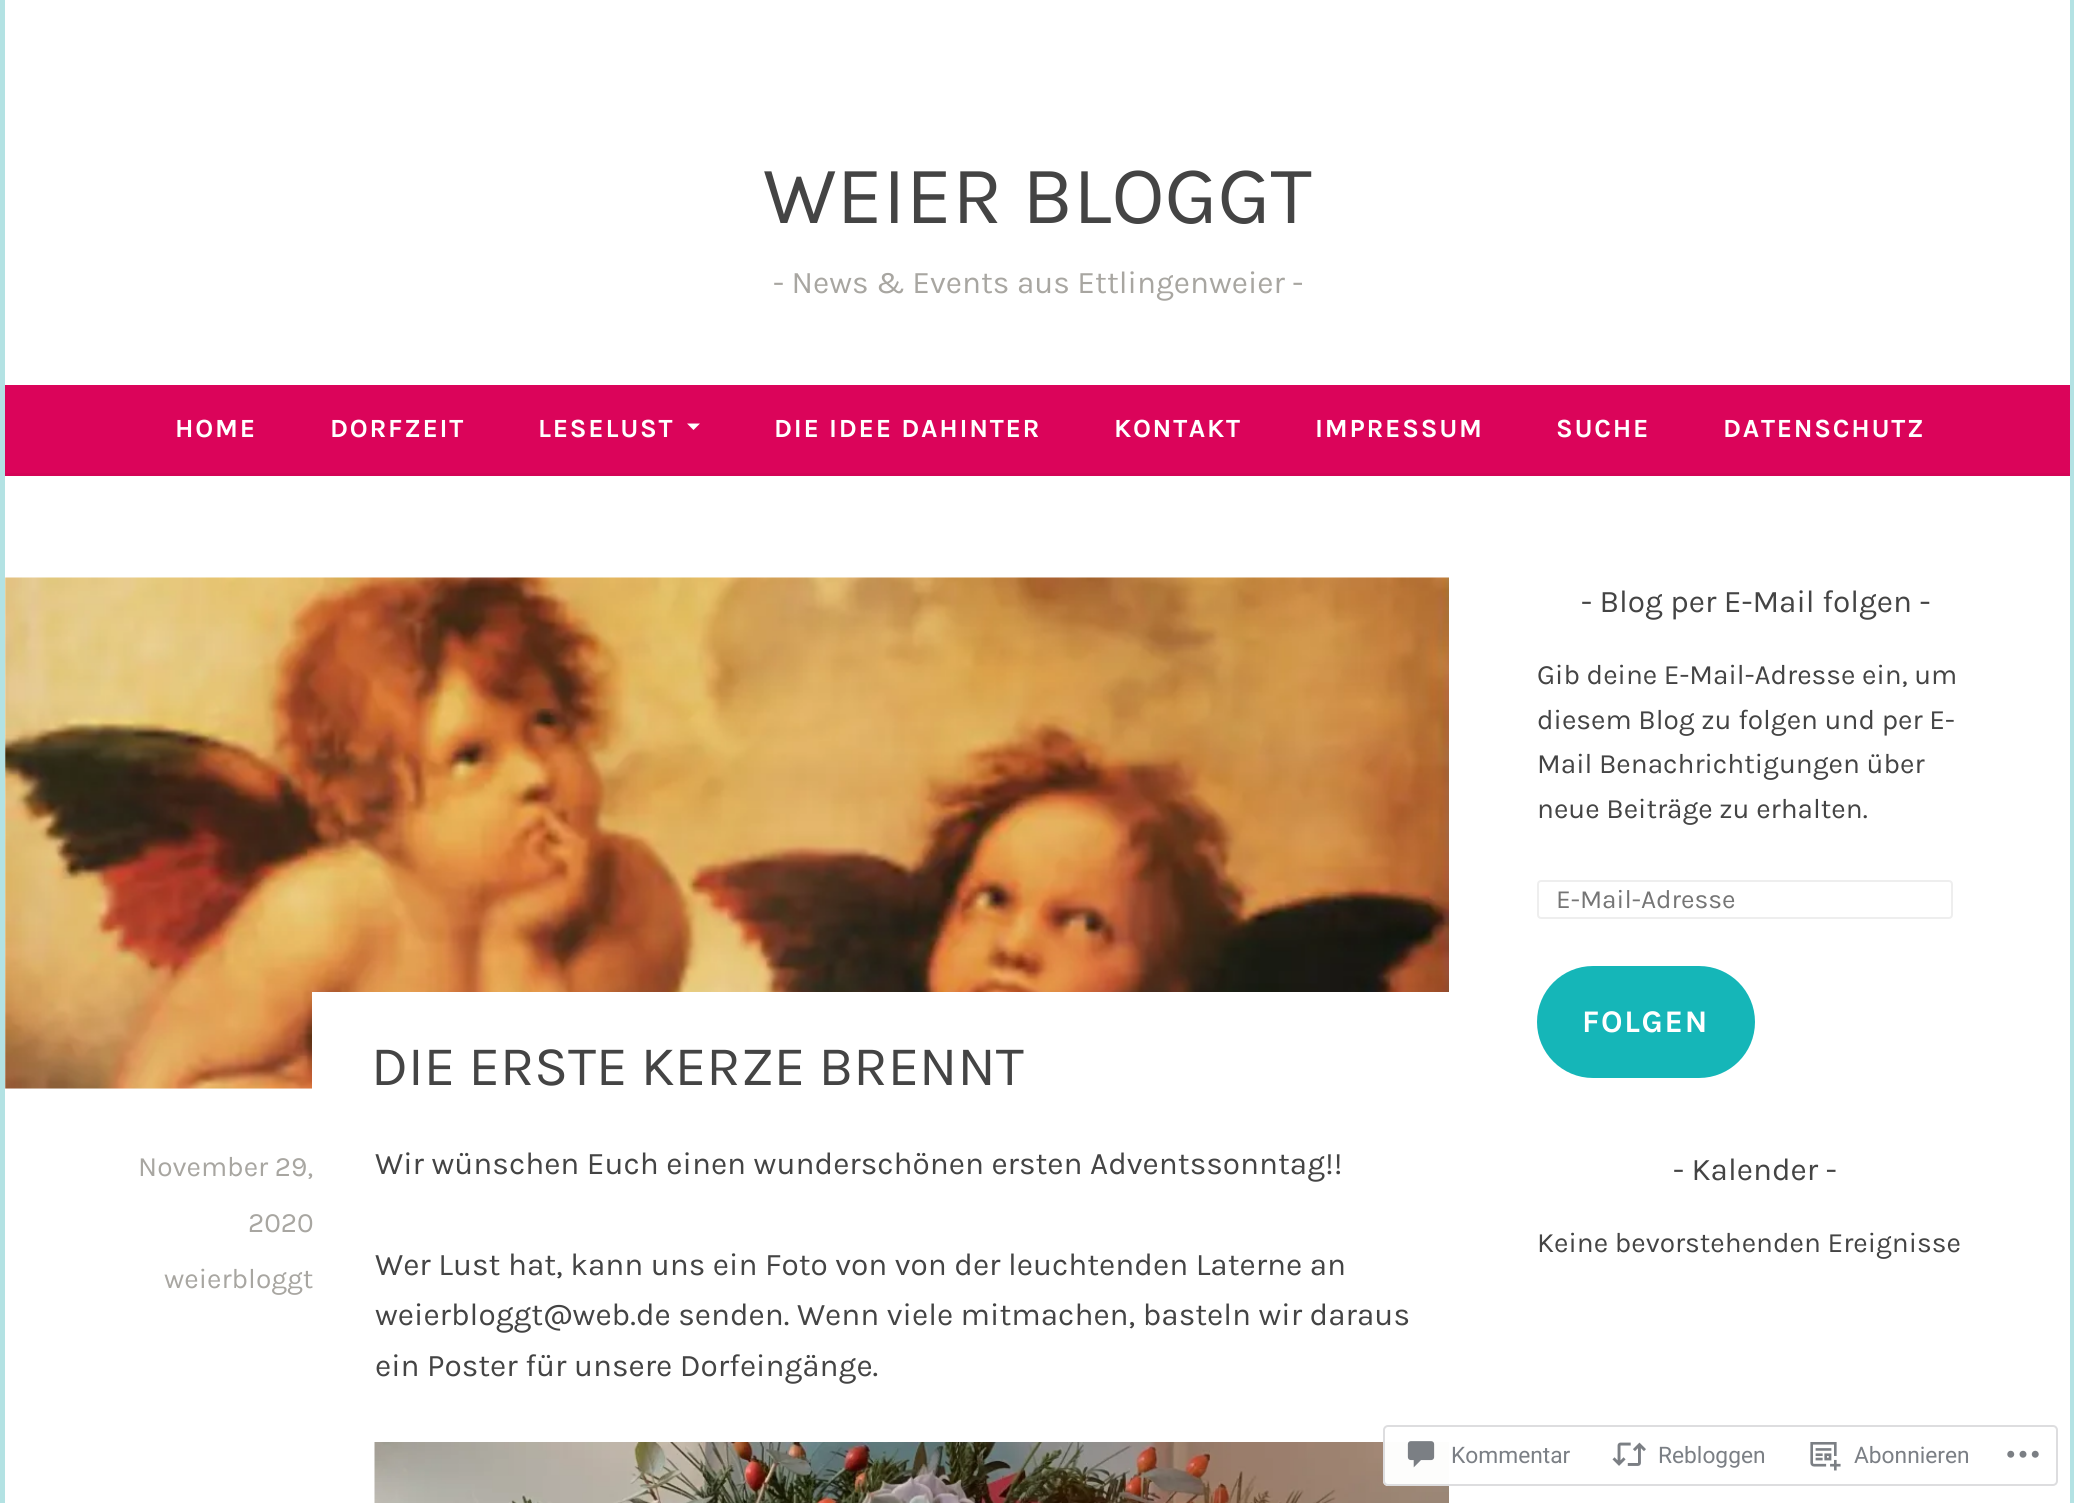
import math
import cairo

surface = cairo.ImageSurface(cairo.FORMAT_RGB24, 2074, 1503)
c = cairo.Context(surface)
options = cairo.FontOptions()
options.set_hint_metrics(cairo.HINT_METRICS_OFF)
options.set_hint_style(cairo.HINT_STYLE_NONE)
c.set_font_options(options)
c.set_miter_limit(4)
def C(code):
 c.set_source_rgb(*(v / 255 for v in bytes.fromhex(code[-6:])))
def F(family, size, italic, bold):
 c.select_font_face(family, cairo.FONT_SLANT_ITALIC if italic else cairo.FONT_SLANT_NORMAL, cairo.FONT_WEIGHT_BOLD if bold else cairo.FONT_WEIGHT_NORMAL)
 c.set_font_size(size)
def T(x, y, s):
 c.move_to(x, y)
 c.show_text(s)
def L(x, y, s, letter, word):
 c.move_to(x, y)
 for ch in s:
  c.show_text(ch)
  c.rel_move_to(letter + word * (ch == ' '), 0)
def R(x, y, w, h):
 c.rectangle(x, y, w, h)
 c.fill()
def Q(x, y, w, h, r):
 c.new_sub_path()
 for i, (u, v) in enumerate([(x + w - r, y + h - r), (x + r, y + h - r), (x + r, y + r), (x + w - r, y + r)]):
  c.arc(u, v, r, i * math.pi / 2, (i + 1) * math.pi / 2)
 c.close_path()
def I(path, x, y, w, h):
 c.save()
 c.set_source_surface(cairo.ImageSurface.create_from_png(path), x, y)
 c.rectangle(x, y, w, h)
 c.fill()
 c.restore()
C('b3e2e3')
c.paint()
C('ffffff')
R(5,0,2065,385)
F('Karla',82.25,0,0)
C('444444')
T(763,223,'WEIER BLOGGT')
F('Karla',31.5,0,0)
C('a8a6a1')
T(773,293,'- News & Events aus Ettlingenweier -')
C('db045a')
R(5,385,2065,88)
C('d40457')
R(5,473,2065,3)
F('Karla',26.25,0,1)
C('ffffff')
L(175,437,'HOME',1.75,0)
L(330,437,'DORFZEIT',1.75,0)
L(538,437,'LESELUST',1.75,0)
c.new_path()
c.move_to(687,423.5)
c.line_to(700,423.5)
c.line_to(693.5,430)
c.close_path()
c.fill()
L(774,437,'DIE IDEE DAHINTER',1.75,0)
L(1114,437,'KONTAKT',1.75,0)
L(1315,437,'IMPRESSUM',1.75,0)
L(1556,437,'SUCHE',1.75,0)
L(1723,437,'DATENSCHUTZ',1.75,0)
R(5,476,2065,1027)
C('f8f9f8')
R(5,578,307,511)
I('1.png',5,577,1444,512)
C('ffffff')
R(312,992,1137,97)
F('Karla',56,0,0)
C('444444')
T(371,1085,'DIE ERSTE KERZE BRENNT')
F('Karla',28,0,0)
C('a8a6a1')
T(138,1176,'November 29,')
T(248,1232,'2020')
T(164,1288,'weierbloggt')
F('Karla',31.5,0,0)
C('444444')
T(375,1174,'Wir wünschen Euch einen wunderschönen ersten Adventssonntag!!')
T(375,1275,'Wer Lust hat, kann uns ein Foto von von der leuchtenden Laterne an')
T(375,1325,'weierbloggt@web.de senden. Wenn viele mitmachen, basteln wir daraus')
T(375,1376,'ein Poster für unsere Dorfeingänge.')
I('2.png',374,1442,1075,61)
T(1581,612,'- Blog per E-Mail folgen -')
F('Karla',28,0,0)
T(1537,684,'Gib deine E-Mail-Adresse ein, um')
T(1537,729,'diesem Blog zu folgen und per E-')
T(1537,773,'Mail Benachrichtigungen über')
T(1537,818,'neue Beiträge zu erhalten.')
Q(1538,881,414,37,3)
C('eeeeee')
c.stroke()
F('Karla',26.25,0,0)
C('757575')
T(1556,908,'E-Mail-Adresse')
C('15b6b8')
Q(1537,966,218,112,56)
c.fill()
F('Karla',31.5,0,1)
C('ffffff')
L(1582,1032,'FOLGEN',1.75,0)
F('Karla',31.5,0,0)
C('444444')
T(1673,1180,'- Kalender -')
F('Karla',28,0,0)
T(1537,1252,'Keine bevorstehenden Ereignisse')
c.set_source_rgba(1,1,1,0.98)
Q(1383,1425,675,61,5)
c.fill()
Q(1384,1426,673,59,4)
c.set_source_rgba(0.863,0.863,0.871,0.98)
c.stroke()
I('3.png',1407,1441,28,27)
F('Roboto',22.75,0,0)
C('7b7f85')
T(1451,1463,'Kommentar')
I('4.png',1612,1442,34,24)
T(1658,1463,'Rebloggen')
I('5.png',1810,1442,31,29)
T(1854,1463,'Abonnieren')
I('6.png',2007,1450,32,8)
surface.write_to_png('o.png')
